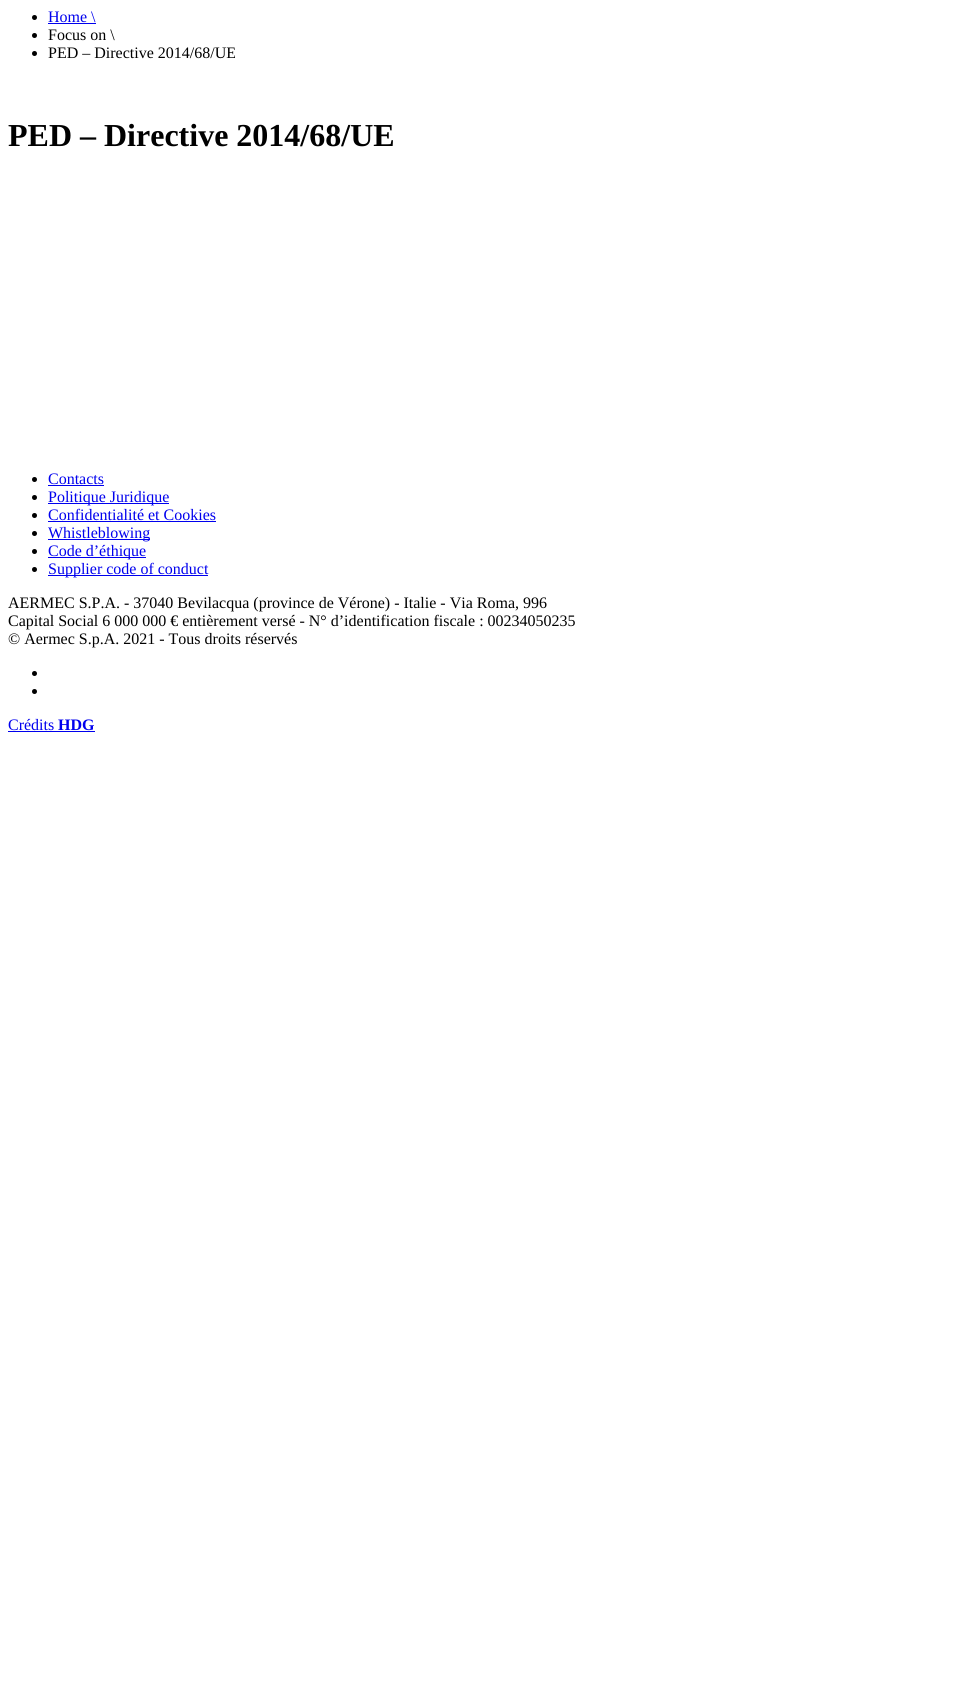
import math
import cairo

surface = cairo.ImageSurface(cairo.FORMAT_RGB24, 965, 1700)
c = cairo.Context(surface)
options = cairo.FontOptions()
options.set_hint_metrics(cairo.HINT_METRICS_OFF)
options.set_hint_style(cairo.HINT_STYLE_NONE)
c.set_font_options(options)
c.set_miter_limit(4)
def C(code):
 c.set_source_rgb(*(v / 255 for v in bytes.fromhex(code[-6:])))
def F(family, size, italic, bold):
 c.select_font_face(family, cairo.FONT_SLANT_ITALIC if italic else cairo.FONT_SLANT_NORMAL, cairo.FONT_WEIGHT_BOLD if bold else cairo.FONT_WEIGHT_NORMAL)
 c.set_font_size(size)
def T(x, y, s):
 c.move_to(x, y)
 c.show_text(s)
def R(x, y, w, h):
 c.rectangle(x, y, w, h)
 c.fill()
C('ffffff')
c.paint()
C('000000')
c.arc(34.5,17.5,2.5,0,2 * math.pi)
c.fill()
F('Liberation Serif',16,0,0)
C('0000ee')
T(48,22,'Home \\')
R(48,23,48,1)
C('000000')
c.new_path()
c.arc(34.5,35.5,2.5,0,2 * math.pi)
c.fill()
T(48,40,'Focus on \\')
c.new_path()
c.arc(34.5,53.5,2.5,0,2 * math.pi)
c.fill()
T(48,58,'PED – Directive 2014/68/UE')
F('Liberation Serif',32,0,1)
T(8,146,'PED – Directive 2014/68/UE')
c.new_path()
c.arc(34.5,479.5,2.5,0,2 * math.pi)
c.fill()
F('Liberation Serif',16,0,0)
C('0000ee')
T(48,484,'Contacts')
R(48,485,56,1)
C('000000')
c.new_path()
c.arc(34.5,497.5,2.5,0,2 * math.pi)
c.fill()
C('0000ee')
R(48,503,121,1)
T(48,502,'Politique Juridique')
C('000000')
c.new_path()
c.arc(34.5,515.5,2.5,0,2 * math.pi)
c.fill()
C('0000ee')
T(48,520,'Confidentialité et Cookies')
R(48,521,168,1)
C('000000')
c.new_path()
c.arc(34.5,533.5,2.5,0,2 * math.pi)
c.fill()
C('0000ee')
R(48,539,102,1)
T(48,538,'Whistleblowing')
C('000000')
c.new_path()
c.arc(34.5,551.5,2.5,0,2 * math.pi)
c.fill()
C('0000ee')
R(48,557,98,1)
T(48,556,'Code d’éthique')
C('000000')
c.new_path()
c.arc(34.5,569.5,2.5,0,2 * math.pi)
c.fill()
C('0000ee')
R(48,575,160,1)
T(48,574,'Supplier code of conduct')
C('000000')
T(8,608,'AERMEC S.P.A. - 37040 Bevilacqua (province de Vérone) - Italie - Via Roma, 996')
T(8,626,'Capital Social 6 000 000 € entièrement versé - N° d’identification fiscale : 00234050235')
T(8,644,'© Aermec S.p.A. 2021 - Tous droits réservés')
c.new_path()
c.arc(34.5,673.5,2.5,0,2 * math.pi)
c.fill()
c.arc(34.5,691.5,2.5,0,2 * math.pi)
c.fill()
C('0000ee')
T(8,730,'Crédits')
F('Liberation Serif',16,0,1)
T(58,730,'HDG')
R(8,731,87,1)
surface.write_to_png('o.png')
